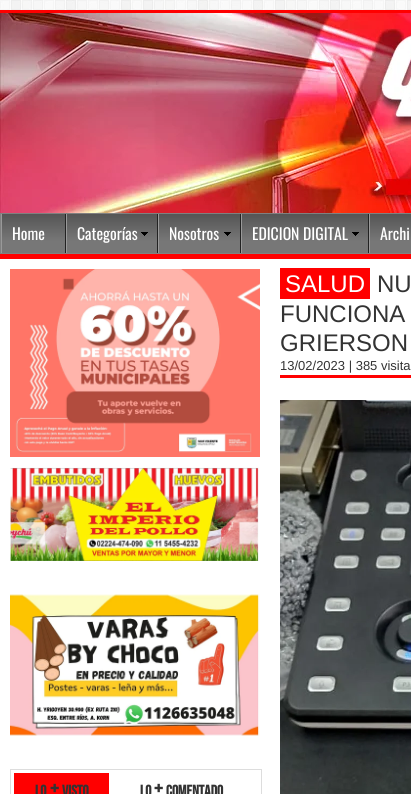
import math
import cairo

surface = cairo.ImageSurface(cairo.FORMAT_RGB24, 411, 794)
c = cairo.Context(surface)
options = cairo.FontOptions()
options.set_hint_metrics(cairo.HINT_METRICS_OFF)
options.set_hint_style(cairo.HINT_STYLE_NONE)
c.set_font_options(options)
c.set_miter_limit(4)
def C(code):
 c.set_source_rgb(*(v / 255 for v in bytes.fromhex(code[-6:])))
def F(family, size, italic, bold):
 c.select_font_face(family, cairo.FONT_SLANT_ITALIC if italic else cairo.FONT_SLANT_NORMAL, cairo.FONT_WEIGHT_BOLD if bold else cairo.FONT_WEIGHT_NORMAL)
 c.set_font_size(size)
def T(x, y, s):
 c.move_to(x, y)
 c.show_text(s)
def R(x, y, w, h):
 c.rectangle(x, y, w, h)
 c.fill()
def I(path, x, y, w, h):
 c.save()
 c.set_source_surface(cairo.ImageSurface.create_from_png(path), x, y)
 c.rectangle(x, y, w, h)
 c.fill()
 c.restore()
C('ffffff')
c.paint()
I('1.png',0,0,411,10)
C('ff0000')
R(0,10,411,3)
I('2.png',0,13,411,200)
R(0,254,411,5)
gradient = cairo.LinearGradient(1,214,1,241)
gradient.add_color_stop_rgba(0,0.333,0.333,0.333,1)
gradient.add_color_stop_rgba(1,0.467,0.467,0.467,1)
c.set_source(gradient)
R(2,214,409,39)
c.rectangle(.5,213.5,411,40)
C('808080')
c.set_line_width(1)
c.stroke()
C('222222')
R(65,214,1,39)
C('999999')
R(1,214,1,39)
F('Oswald',15.75,0,0)
C('ffffff')
T(12,240,'Home')
C('222222')
R(157,214,1,39)
C('999999')
R(66,214,1,39)
I('3.png',141,232,7,4)
C('ffffff')
T(77,240,'Categorías')
C('222222')
R(240,214,1,39)
C('999999')
R(158,214,1,39)
I('3.png',224,232,7,4)
C('ffffff')
T(169,240,'Nosotros')
C('222222')
R(368,214,1,39)
C('999999')
R(241,214,1,39)
I('3.png',352,232,7,4)
C('ffffff')
T(252,240,'EDICION DIGITAL')
C('999999')
R(369,214,1,39)
C('ffffff')
T(380,240,'Archi')
C('ff0000')
R(280,375,131,3)
R(280,268,90,31)
F('Liberation Sans',24,0,0)
C('ffffff')
T(285,292,'SALUD')
C('333333')
T(377,292,'NU')
T(280,322,'FUNCIONA')
T(280,351,'GRIERSON')
F('Liberation Sans',13,0,0)
T(280,370,'13/02/2023 | 385 visita')
I('4.png',280,400,131,394)
I('5.png',10,269,250,188)
I('6.png',10,467,249,94)
I('7.png',10,594,250,142)
c.rectangle(10.5,769.5,251,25)
C('dddddd')
c.stroke()
C('ff0000')
R(14,773,95,21)
F('Bebas Neue',15.5,0,1)
C('333333')
T(35,796,'LO')
F('Bebas Neue',22,0,1)
T(50,796,'+')
F('Bebas Neue',15.5,0,1)
T(62,796,'VISTO')
T(140,796,'LO')
F('Bebas Neue',22,0,1)
T(154,796,'+')
F('Bebas Neue',15.5,0,1)
T(166,796,'COMENTADO')
surface.write_to_png('o.png')
